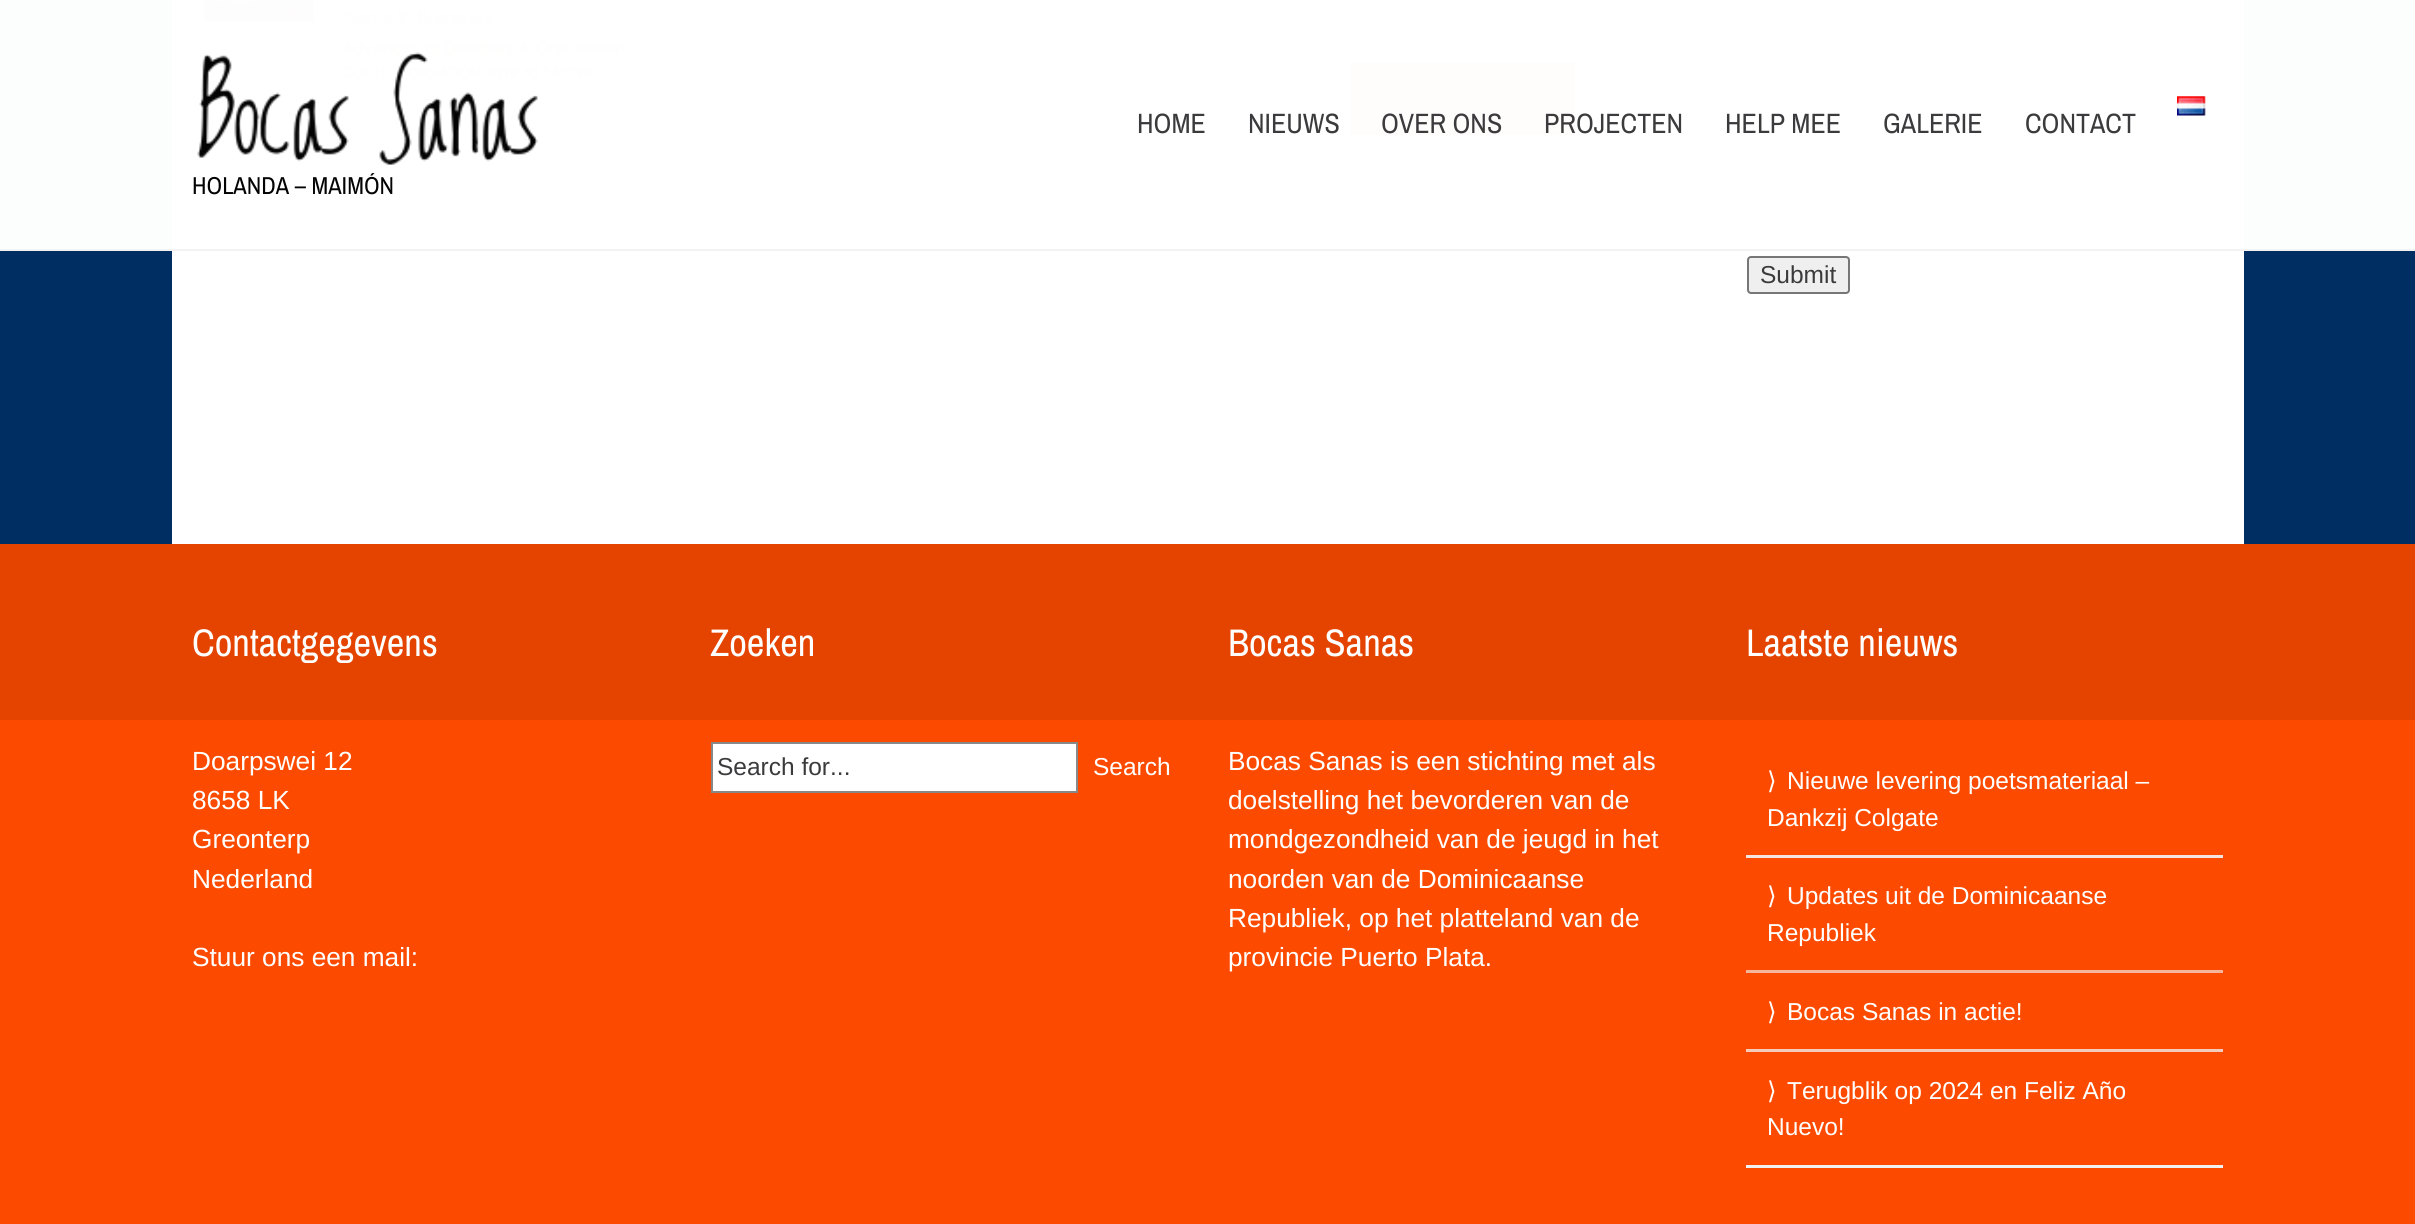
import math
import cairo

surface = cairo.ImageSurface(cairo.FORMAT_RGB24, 2415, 1224)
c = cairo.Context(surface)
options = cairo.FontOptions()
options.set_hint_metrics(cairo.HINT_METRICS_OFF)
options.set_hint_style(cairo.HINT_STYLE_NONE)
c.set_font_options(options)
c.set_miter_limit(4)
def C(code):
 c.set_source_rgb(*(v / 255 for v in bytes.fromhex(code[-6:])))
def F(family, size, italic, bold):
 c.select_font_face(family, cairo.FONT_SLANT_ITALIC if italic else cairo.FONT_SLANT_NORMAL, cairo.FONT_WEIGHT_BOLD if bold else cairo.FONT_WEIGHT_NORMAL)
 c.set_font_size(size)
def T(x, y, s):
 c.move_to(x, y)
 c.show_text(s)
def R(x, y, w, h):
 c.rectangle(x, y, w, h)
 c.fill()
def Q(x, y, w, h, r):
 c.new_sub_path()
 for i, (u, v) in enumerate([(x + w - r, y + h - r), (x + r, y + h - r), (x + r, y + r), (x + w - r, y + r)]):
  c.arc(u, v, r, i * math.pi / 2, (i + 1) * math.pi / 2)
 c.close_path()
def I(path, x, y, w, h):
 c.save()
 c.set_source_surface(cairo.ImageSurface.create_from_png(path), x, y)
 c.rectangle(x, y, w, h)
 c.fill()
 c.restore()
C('002d62')
c.paint()
C('f1f1f2')
R(0,250,2415,1)
C('fcfdfd')
R(0,0,2415,249)
C('f3f3f3')
R(0,249,2415,1)
C('ffffff')
R(172,0,2072,249)
I('1.png',2177,96,29,20)
F('Archivo Narrow',28,0,0)
C('3b3b3d')
T(1137,133,'HOME')
T(1248,133,'NIEUWS')
C('fffdfc')
R(1351,63,224,72)
C('3b3b3d')
T(1381,133,'OVER ONS')
T(1544,133,'PROJECTEN')
T(1725,133,'HELP MEE')
T(1883,133,'GALERIE')
T(2025,133,'CONTACT')
I('3.png',193,0,447,86)
I('2.png',197,52,341,113)
F('Archivo Narrow',24.5,0,0)
C('030303')
T(192,194,'HOLANDA – MAIMÓN')
C('ffffff')
R(172,251,2072,293)
C('efefef')
Q(1748,257,101,36,3)
c.fill_preserve()
C('767676')
c.stroke()
F('Arimo',24.5,0,0)
C('3b3b3d')
T(1760,283,'Submit')
C('fc4b00')
R(0,720,2415,504)
C('e44400')
R(0,544,2415,176)
F('Archivo Narrow',38.5,0,0)
C('ffffff')
T(192,656,'Contactgegevens')
F('Arimo',26.25,0,0)
T(192,770,'Doarpswei 12')
T(192,809,'8658 LK')
T(192,848,'Greonterp')
T(192,888,'Nederland')
T(192,966,'Stuur ons een mail:')
F('Archivo Narrow',38.5,0,0)
T(710,656,'Zoeken')
c.rectangle(712,743,365,49)
c.fill_preserve()
C('888888')
c.stroke()
F('Arimo',24.5,0,0)
C('3b3b3d')
T(717,775,'Search for...')
C('ffffff')
T(1093,775,'Search')
F('Archivo Narrow',38.5,0,0)
T(1228,656,'Bocas Sanas')
F('Arimo',26.25,0,0)
T(1228,770,'Bocas Sanas is een stichting met als')
T(1228,809,'doelstelling het bevorderen van de')
T(1228,848,'mondgezondheid van de jeugd in het')
T(1228,888,'noorden van de Dominicaanse')
T(1228,927,'Republiek, op het platteland van de')
T(1228,966,'provincie Puerto Plata.')
F('Archivo Narrow',38.5,0,0)
T(1746,656,'Laatste nieuws')
C('f2e5e0')
R(1746,855,477,3)
F('DejaVu Sans',24.5,0,0)
C('ffffff')
T(1767,789,'⟩')
F('Arimo',24.5,0,0)
T(1787,789,'Nieuwe levering poetsmateriaal –')
T(1767,826,'Dankzij Colgate')
C('f5b59a')
R(1746,970,477,3)
F('DejaVu Sans',24.5,0,0)
C('ffffff')
T(1767,904,'⟩')
F('Arimo',24.5,0,0)
T(1787,904,'Updates uit de Dominicaanse')
T(1767,941,'Republiek')
C('f3ccbc')
R(1746,1049,477,3)
F('DejaVu Sans',24.5,0,0)
C('ffffff')
T(1767,1020,'⟩')
F('Arimo',24.5,0,0)
T(1787,1020,'Bocas Sanas in actie!')
C('f1f1f1')
R(1746,1165,477,3)
F('DejaVu Sans',24.5,0,0)
C('ffffff')
T(1767,1099,'⟩')
F('Arimo',24.5,0,0)
T(1787,1099,'Terugblik op 2024 en Feliz Año')
T(1767,1135,'Nuevo!')
surface.write_to_png('o.png')
